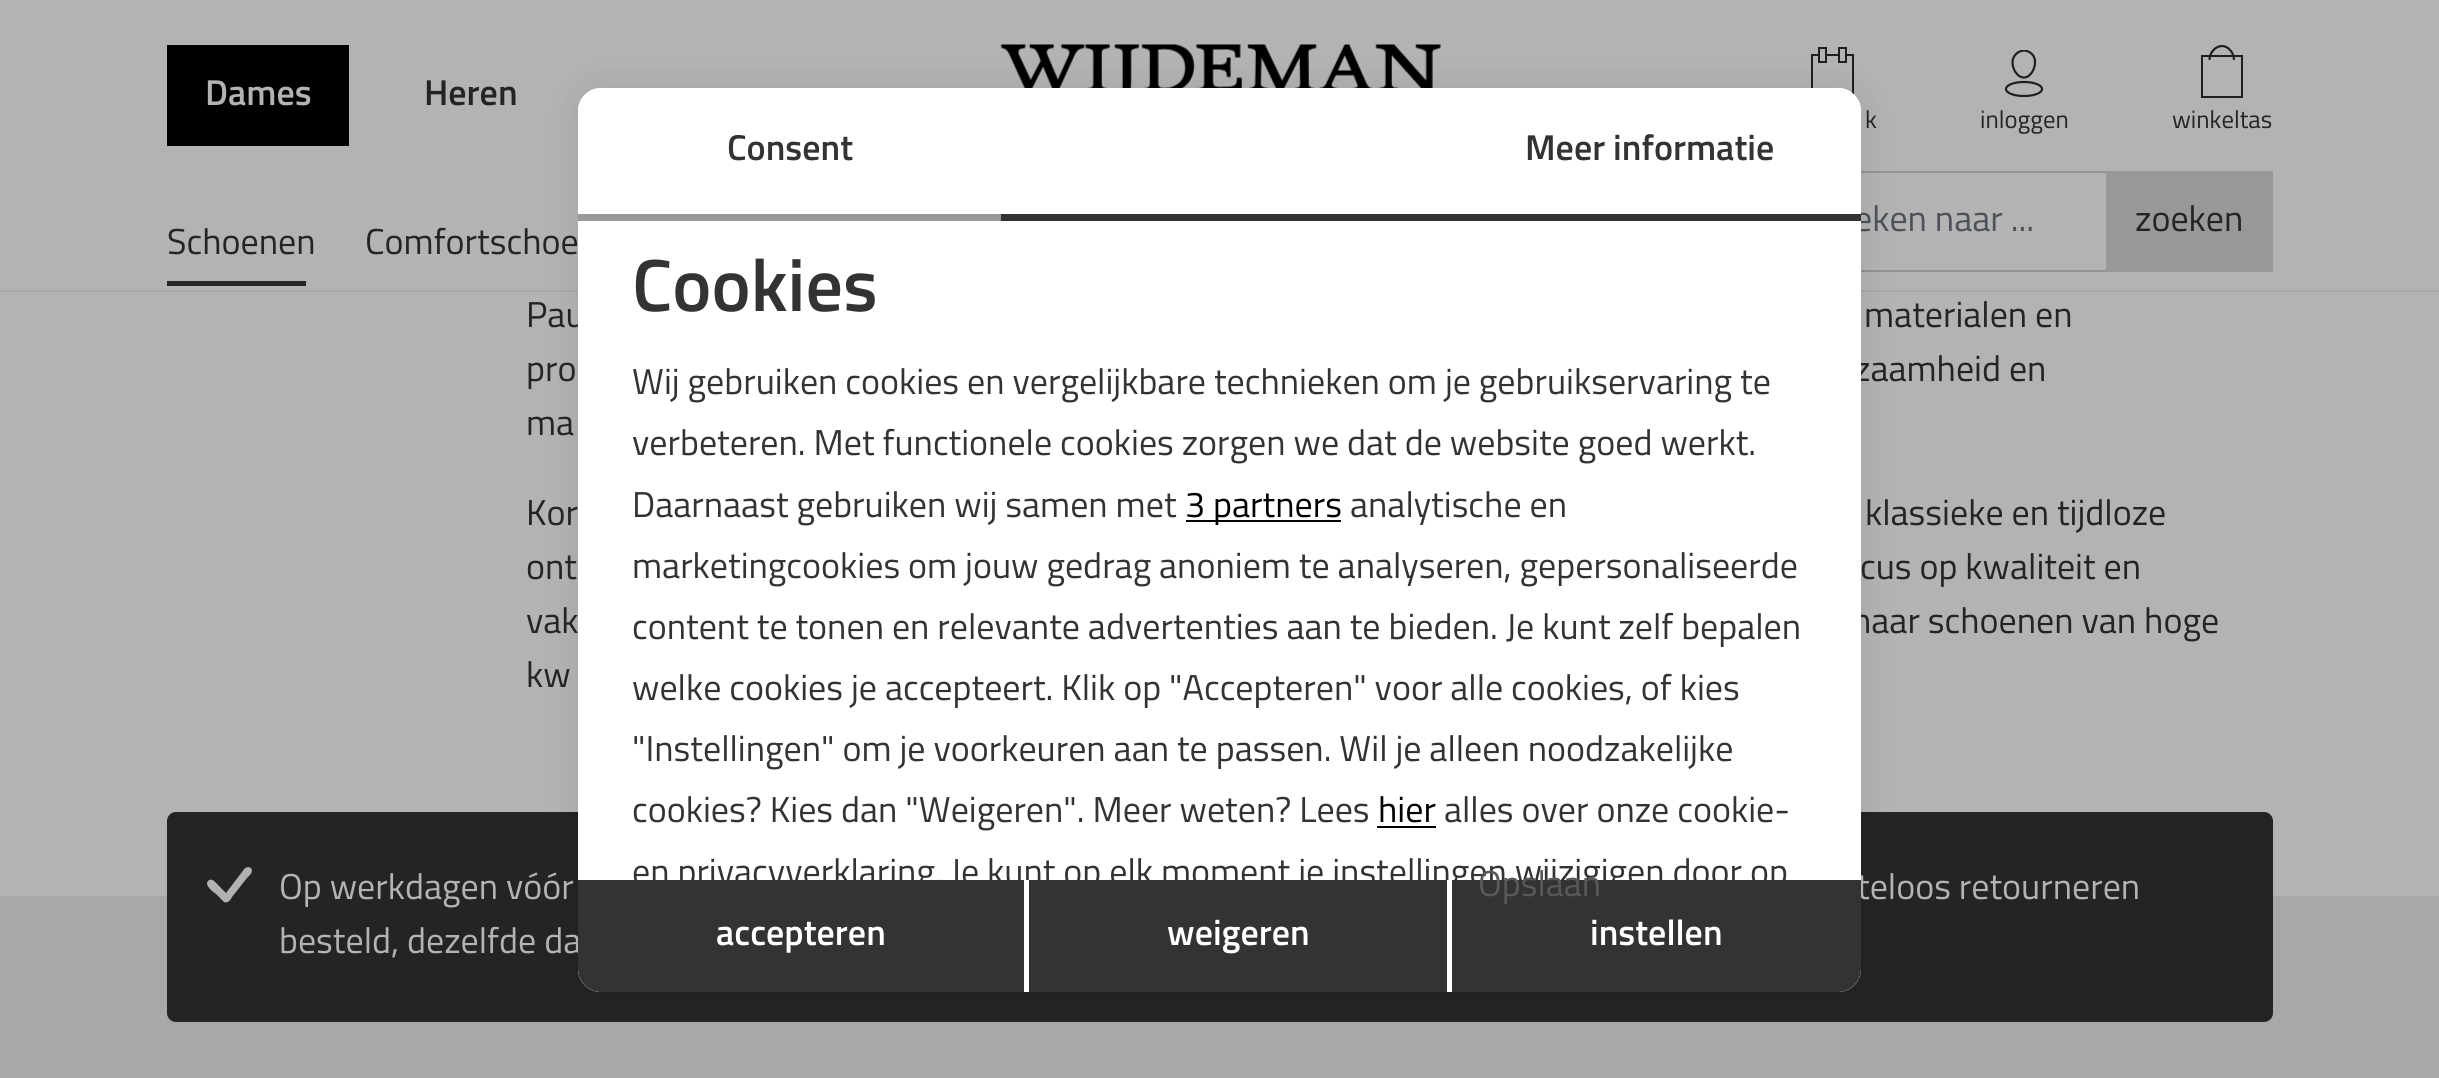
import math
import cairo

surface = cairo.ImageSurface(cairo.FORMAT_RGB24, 2439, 1078)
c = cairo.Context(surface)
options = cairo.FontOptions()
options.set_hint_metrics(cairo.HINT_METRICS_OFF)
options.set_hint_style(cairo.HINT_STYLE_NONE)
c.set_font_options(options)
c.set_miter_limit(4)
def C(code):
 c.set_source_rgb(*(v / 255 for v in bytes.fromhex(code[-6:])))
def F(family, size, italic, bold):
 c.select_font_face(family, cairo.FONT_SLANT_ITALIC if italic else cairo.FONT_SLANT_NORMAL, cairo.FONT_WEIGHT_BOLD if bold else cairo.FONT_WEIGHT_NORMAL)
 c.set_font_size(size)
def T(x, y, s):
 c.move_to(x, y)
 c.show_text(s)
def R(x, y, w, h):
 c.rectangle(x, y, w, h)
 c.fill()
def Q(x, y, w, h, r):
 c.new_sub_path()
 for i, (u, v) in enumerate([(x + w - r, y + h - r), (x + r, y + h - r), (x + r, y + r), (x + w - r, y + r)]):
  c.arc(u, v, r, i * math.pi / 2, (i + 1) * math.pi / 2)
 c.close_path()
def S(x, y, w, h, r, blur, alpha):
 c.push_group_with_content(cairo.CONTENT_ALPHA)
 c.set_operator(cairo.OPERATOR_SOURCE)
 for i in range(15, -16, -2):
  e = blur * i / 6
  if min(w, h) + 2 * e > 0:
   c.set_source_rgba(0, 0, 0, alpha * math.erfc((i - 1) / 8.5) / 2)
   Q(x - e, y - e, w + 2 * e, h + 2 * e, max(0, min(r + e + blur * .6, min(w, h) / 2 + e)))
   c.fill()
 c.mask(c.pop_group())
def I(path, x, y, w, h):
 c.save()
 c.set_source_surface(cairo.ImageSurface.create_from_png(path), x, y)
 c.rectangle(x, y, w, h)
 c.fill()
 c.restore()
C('b3b3b3')
c.paint()
C('a9a8a9')
R(0,290,2439,2)
I('1.png',1000,44,441,44)
C('000000')
R(167,45,182,101)
F('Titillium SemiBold',36,0,0)
C('b3b3b3')
T(205,105,'Dames')
C('242424')
T(424,105,'Heren')
c.rectangle(1812,55,41,41)
C('1f1f1f')
c.stroke()
C('b3b3b3')
c.rectangle(1819,48,7,14)
c.fill_preserve()
C('1f1f1f')
c.stroke()
C('b3b3b3')
c.rectangle(1839,48,7,14)
c.fill_preserve()
C('1f1f1f')
c.stroke()
F('Titillium',24.75,0,0)
C('242424')
T(1865,128,'k')
c.save()
c.rectangle(2005,50,38,47)
c.clip()
c.new_path()
c.move_to(2035,62.5)
c.curve_to(2035,69.5,2030,77.5,2024,77.5)
c.curve_to(2017.5,77.5,2012.5,69.5,2012.5,62.5)
c.curve_to(2012.5,56,2017.5,51,2024,50.5)
c.curve_to(2030.5,51,2035.5,56,2035,62.5)
c.close_path()
C('1f1f1f')
c.set_line_width(2.2)
c.stroke()
c.restore()
c.new_path()
c.move_to(2024,82)
c.curve_to(2034,82,2042,85,2042,89)
c.curve_to(2042,93,2034,96,2024,96)
c.curve_to(2014,96,2006,93,2006,89)
c.curve_to(2006,85,2014,82,2024,82)
c.close_path()
C('1f1f1f')
c.set_line_width(2.2)
c.stroke()
C('242424')
T(1980,128,'inloggen')
c.rectangle(2202,56,40,41)
C('1f1f1f')
c.set_line_width(2)
c.stroke()
c.new_path()
c.move_to(2209.5,60)
c.curve_to(2209.5,52.5,2215.5,46,2222,46)
c.curve_to(2228,46,2234,52.5,2234,60)
c.set_line_width(2.2)
c.stroke()
C('242424')
T(2172,128,'winkeltas')
c.rectangle(1788,172,319,99)
C('909499')
c.set_line_width(2)
c.stroke()
F('Titillium',36,0,0)
C('4c5258')
T(1854,231,'eken naar ...')
C('989898')
R(2106,171,167,101)
C('242424')
T(2135,231,'zoeken')
T(167,254,'Schoenen')
R(167,281,139,5)
T(365,254,'Comfortschoe')
C('a9a8a9')
R(0,896,2439,182)
C('242424')
Q(167,812,2106,210,9)
c.fill()
C('000000')
S(578,88,1283,904,23,17,.1)
C('242424')
T(526,327,'Pau')
T(1854,381,'zaamheid en')
T(526,633,'vak')
T(1852,633,'naar schoenen van hoge')
C('b3b3b3')
T(279,953,'besteld, dezelfde da')
T(1857,899,'teloos retourneren')
C('ffffff')
Q(578,88,1283,904,23)
c.fill()
C('333333')
R(1001,214,437,7)
C('ffffff')
c.new_path()
c.move_to(601,88)
c.line_to(1001,88)
c.line_to(1001,221)
c.line_to(578,221)
c.line_to(578,111)
c.curve_to(578,98.5,588.5,88,601,88)
c.close_path()
c.fill()
C('999999')
R(578,214,423,7)
F('Titillium SemiBold',36,0,0)
C('333333')
T(727,160,'Consent')
C('ffffff')
c.new_path()
c.move_to(1438,88)
c.line_to(1838,88)
c.curve_to(1850.5,88,1861,98.5,1861,111)
c.line_to(1861,221)
c.line_to(1438,221)
c.close_path()
c.fill()
C('333333')
R(1438,214,423,7)
T(1525,160,'Meer informatie')
F('Titillium SemiBold',74,0,0)
T(632,311,'Cookies')
F('Titillium',36,0,0)
T(632,394,'Wij gebruiken cookies en vergelijkbare technieken om je gebruikservaring te')
T(632,455,'verbeteren. Met functionele cookies zorgen we dat de website goed werkt.')
T(632,517,'Daarnaast gebruiken wij samen met')
C('000000')
R(1186,520,155,2)
T(1185,517,'3 partners')
C('333333')
T(1350,517,'analytische en')
T(632,578,'marketingcookies om jouw gedrag anoniem te analyseren, gepersonaliseerde')
T(632,639,'content te tonen en relevante advertenties aan te bieden. Je kunt zelf bepalen')
T(632,700,'welke cookies je accepteert. Klik op "Accepteren" voor alle cookies, of kies')
T(632,761,'"Instellingen" om je voorkeuren aan te passen. Wil je alleen noodzakelijke')
T(632,822,'cookies? Kies dan "Weigeren". Meer weten? Lees')
C('000000')
T(1378,822,'hier')
R(1377,826,59,2)
C('333333')
T(1444,822,'alles over onze cookie-')
T(632,884,'en privacyverklaring. Je kunt op elk moment je instellingen wijzigigen door op')
c.new_path()
c.move_to(1447,880)
c.line_to(1861,880)
c.line_to(1861,969)
c.curve_to(1861,981.5,1850.5,992,1838,992)
c.line_to(1447,992)
c.close_path()
c.fill()
C('585858')
T(1478,896,'Opslaan')
C('333333')
c.new_path()
c.move_to(578,880)
c.line_to(1024,880)
c.line_to(1024,992)
c.line_to(601,992)
c.curve_to(588.5,992,578,981.5,578,969)
c.close_path()
c.fill()
F('Titillium SemiBold',36,0,0)
C('ffffff')
T(716,945,'accepteren')
C('333333')
R(1029,880,418,112)
C('ffffff')
R(1026,880,3,4)
T(1167,945,'weigeren')
R(1447,880,5,112)
T(1590,945,'instellen')
F('Titillium',36,0,0)
C('242424')
T(1864,327,'materialen en')
T(526,381,'pro')
T(526,435,'ma')
T(526,525,'Kor')
T(1865,525,'klassieke en tijdloze')
T(526,579,'ont')
T(1860,579,'cus op kwaliteit en')
T(526,687,'kw')
C('b1b1b1')
c.new_path()
c.move_to(245,868)
c.line_to(248,867)
c.line_to(251,868)
c.curve_to(254,872,249,876,247,878)
c.line_to(232,897)
c.curve_to(231,899,228,904,224,902)
c.line_to(216,894)
c.curve_to(213,892,204,885,208,881)
c.curve_to(212,877,216,883,218,885)
c.line_to(226,893)
c.close_path()
c.fill()
C('b3b3b3')
T(279,899,'Op werkdagen vóór')
surface.write_to_png('o.png')
